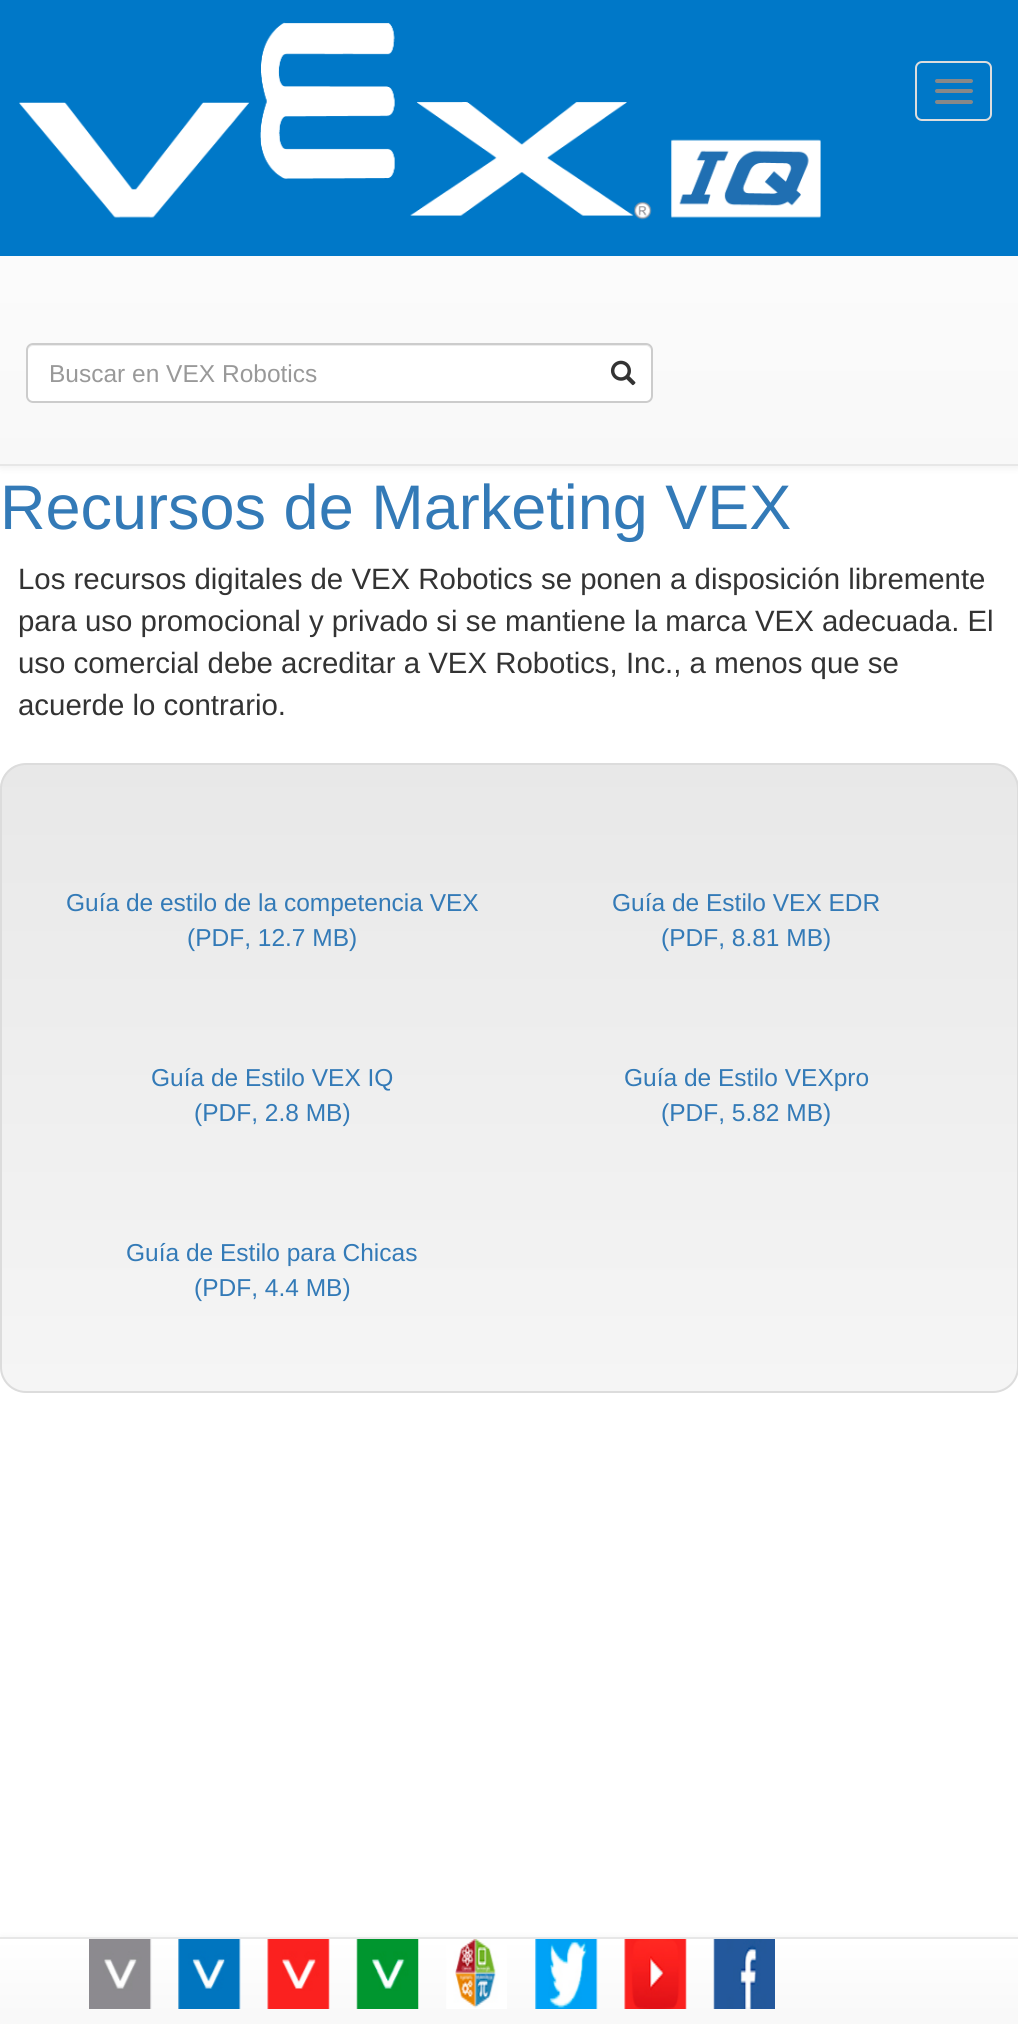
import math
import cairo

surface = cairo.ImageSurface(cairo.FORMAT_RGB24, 1018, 2024)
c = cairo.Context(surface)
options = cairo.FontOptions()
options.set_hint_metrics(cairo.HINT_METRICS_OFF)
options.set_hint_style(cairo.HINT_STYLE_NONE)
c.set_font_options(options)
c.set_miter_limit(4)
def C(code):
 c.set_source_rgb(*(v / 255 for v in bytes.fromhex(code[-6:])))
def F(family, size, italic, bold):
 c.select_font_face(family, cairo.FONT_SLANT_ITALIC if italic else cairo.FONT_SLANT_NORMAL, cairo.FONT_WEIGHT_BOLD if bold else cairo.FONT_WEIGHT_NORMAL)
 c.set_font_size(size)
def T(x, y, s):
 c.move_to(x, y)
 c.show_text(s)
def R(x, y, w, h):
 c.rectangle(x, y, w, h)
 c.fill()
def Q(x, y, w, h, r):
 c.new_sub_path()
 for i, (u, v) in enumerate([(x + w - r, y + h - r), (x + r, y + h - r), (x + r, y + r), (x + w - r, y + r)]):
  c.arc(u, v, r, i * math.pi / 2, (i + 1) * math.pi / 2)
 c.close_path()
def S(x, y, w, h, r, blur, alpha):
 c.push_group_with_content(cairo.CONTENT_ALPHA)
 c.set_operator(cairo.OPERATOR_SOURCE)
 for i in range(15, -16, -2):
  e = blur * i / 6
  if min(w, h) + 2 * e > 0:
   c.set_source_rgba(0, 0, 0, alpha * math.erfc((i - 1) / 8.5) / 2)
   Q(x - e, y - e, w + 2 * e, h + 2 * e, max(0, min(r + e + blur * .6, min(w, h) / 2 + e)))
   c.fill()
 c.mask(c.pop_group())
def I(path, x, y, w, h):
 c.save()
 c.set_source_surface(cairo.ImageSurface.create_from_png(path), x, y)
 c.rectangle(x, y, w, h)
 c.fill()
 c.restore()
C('ffffff')
c.paint()
C('000000')
S(0,2,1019,465,0,4.5,.07)
gradient = cairo.LinearGradient(509,0,509,464)
gradient.add_color_stop_rgba(0,1,1,1,1)
gradient.add_color_stop_rgba(1,0.973,0.973,0.973,1)
c.set_source(gradient)
R(0,256,1018,208)
C('e7e7e7')
R(0,464,1018,2)
C('0078c8')
R(0,0,1018,256)
I('1.png',19,22,802,198)
Q(916,62,75,58,6)
C('dddddd')
c.stroke()
C('888888')
Q(935,79,38,4,2)
c.fill()
Q(935,89,38,4,2)
c.fill()
Q(935,100,38,4,2)
c.fill()
C('ffffff')
Q(26,343,627,60,7)
c.fill()
C('ececec')
c.new_path()
c.move_to(33,346)
c.line_to(646,346)
c.curve_to(649,346,651,349,651,352)
c.curve_to(651,349,650,345,646,345)
c.line_to(33,345)
c.curve_to(29,345,28,349,28,352)
c.curve_to(28,349,30,346,33,346)
c.close_path()
c.fill()
Q(27,344,625,58,6)
C('cccccc')
c.stroke()
F('Liberation Sans',24.5,0,0)
C('999999')
T(49,382,'Buscar en VEX Robotics')
I('2.png',610,360,26,26)
F('Liberation Sans',63,0,0)
C('337ab7')
T(0,529,'Recursos de Marketing VEX')
F('Liberation Sans',29.4,0,0)
C('333333')
T(18,589,'Los recursos digitales de VEX Robotics se ponen a disposición libremente')
T(18,631,'para uso promocional y privado si se mantiene la marca VEX adecuada. El')
T(18,673,'uso comercial debe acreditar a VEX Robotics, Inc., a menos que se')
T(18,715,'acuerde lo contrario.')
c.save()
Q(0,763,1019,630,26)
c.clip()
gradient = cairo.LinearGradient(509,765,509,1391)
gradient.add_color_stop_rgba(0,0.91,0.91,0.91,1)
gradient.add_color_stop_rgba(1,0.961,0.961,0.961,1)
c.set_source(gradient)
R(0,765,1018,626)
c.restore()
Q(1,764,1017,628,25)
C('dcdcdc')
c.stroke()
F('Liberation Sans',24.5,0,0)
C('337ab7')
T(66,911,'Guía de estilo de la competencia VEX')
T(187,946,'(PDF, 12.7 MB)')
T(612,911,'Guía de Estilo VEX EDR')
T(661,946,'(PDF, 8.81 MB)')
T(151,1086,'Guía de Estilo VEX IQ')
T(194,1121,'(PDF, 2.8 MB)')
T(624,1086,'Guía de Estilo VEXpro')
T(661,1121,'(PDF, 5.82 MB)')
T(126,1261,'Guía de Estilo para Chicas')
T(194,1296,'(PDF, 4.4 MB)')
C('000000')
S(0,1939,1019,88,0,4.5,.07)
gradient = cairo.LinearGradient(509,1939,509,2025)
gradient.add_color_stop_rgba(0,1,1,1,1)
gradient.add_color_stop_rgba(1,0.973,0.973,0.973,1)
c.set_source(gradient)
R(0,1939,1018,85)
C('e7e7e7')
R(0,1937,1018,2)
I('3.png',89,1939,63,70)
I('4.png',178,1939,63,70)
I('5.png',267,1939,63,70)
I('6.png',356,1939,63,70)
I('7.png',446,1939,61,70)
I('8.png',535,1939,63,70)
I('9.png',624,1939,63,70)
I('10.png',713,1939,62,70)
surface.write_to_png('o.png')
